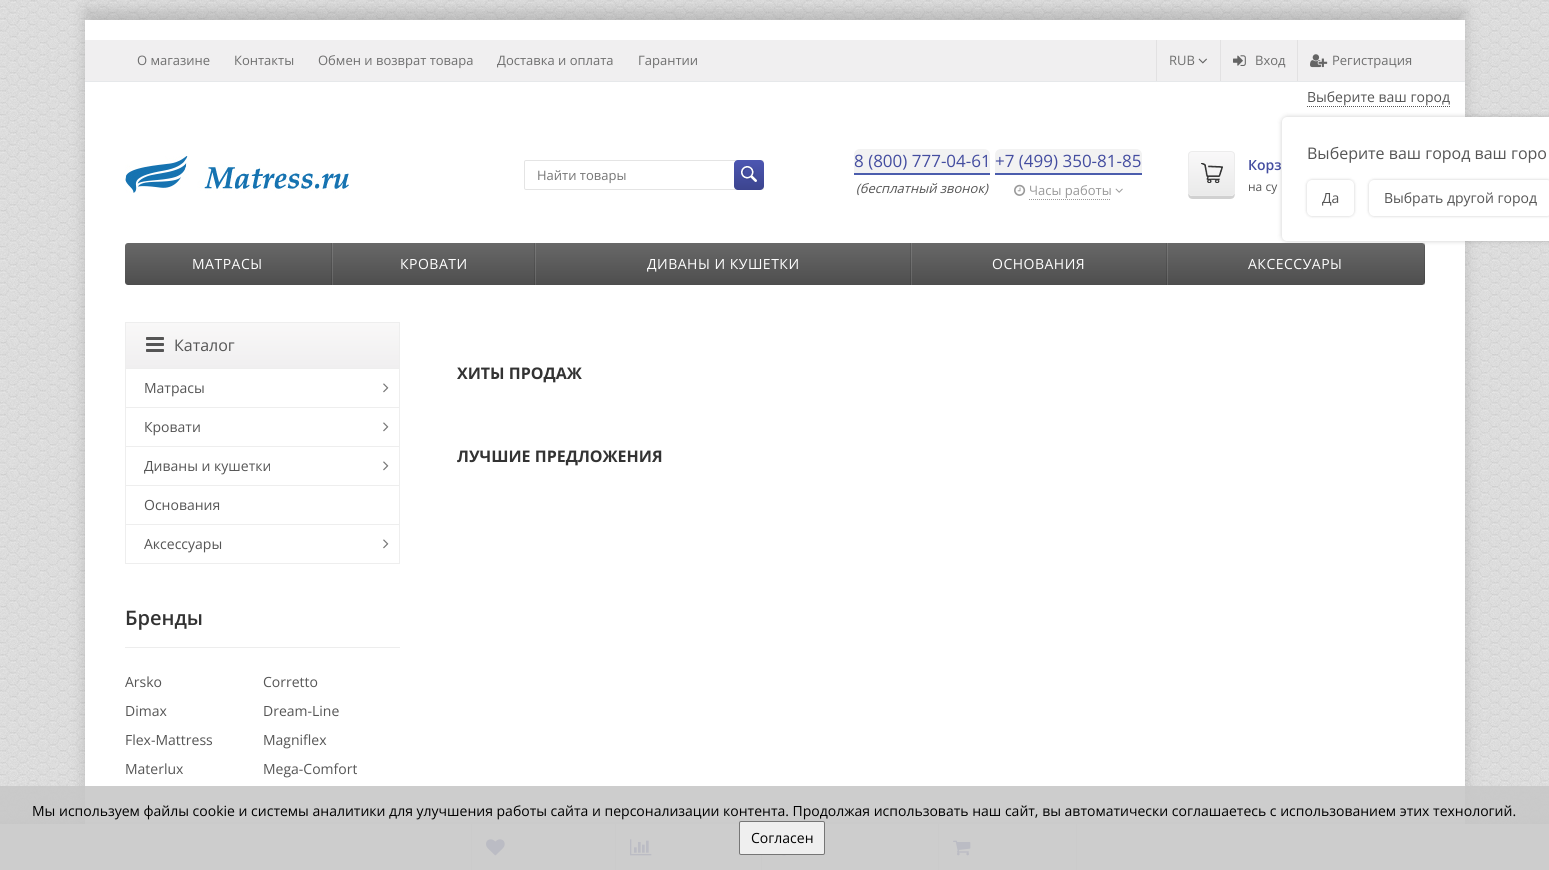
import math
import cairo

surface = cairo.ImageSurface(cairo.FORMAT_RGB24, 1549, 870)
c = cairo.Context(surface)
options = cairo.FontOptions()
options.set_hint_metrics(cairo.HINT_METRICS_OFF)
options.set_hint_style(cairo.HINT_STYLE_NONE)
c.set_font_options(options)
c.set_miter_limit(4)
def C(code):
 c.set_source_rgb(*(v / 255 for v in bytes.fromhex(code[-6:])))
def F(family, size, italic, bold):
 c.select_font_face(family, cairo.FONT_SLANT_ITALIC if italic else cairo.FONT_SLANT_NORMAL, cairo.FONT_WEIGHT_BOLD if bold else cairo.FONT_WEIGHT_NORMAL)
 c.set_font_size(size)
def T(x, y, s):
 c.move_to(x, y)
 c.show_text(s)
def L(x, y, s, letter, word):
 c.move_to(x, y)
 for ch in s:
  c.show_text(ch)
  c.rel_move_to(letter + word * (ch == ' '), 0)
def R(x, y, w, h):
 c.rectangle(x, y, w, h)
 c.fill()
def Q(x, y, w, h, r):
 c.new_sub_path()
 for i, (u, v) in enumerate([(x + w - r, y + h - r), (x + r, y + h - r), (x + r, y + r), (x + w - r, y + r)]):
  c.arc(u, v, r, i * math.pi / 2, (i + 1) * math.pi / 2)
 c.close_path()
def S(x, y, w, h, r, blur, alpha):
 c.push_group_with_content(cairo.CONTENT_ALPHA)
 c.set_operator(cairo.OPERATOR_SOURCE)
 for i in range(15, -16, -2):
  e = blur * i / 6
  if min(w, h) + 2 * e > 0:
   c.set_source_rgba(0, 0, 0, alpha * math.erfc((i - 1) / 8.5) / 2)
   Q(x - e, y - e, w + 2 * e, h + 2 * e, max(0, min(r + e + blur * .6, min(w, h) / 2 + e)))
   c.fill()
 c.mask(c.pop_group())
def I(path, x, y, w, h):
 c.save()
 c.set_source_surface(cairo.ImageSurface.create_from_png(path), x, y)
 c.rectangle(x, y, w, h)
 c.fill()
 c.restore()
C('ffffff')
c.paint()
I('1.png',0,0,1549,824)
C('000000')
S(85,10,1380,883,0,7.5,.15)
C('ffffff')
R(85,20,1380,804)
C('f0eff0')
R(85,40,1380,42)
C('e6e8ea')
Q(85,81,1380,1,.5)
c.fill()
F('Open Sans',13,0,0)
C('6f6f6f')
T(137,65,'О магазине')
T(234,65,'Контакты')
T(318,65,'Обмен и возврат товара')
T(497,65,'Доставка и оплата')
T(638,65,'Гарантии')
C('e2e1e2')
R(1156,40,1,41)
C('6f6f6f')
T(1169,65,'RUB')
I('2.png',1198,58,9,6)
C('e2e1e2')
R(1220,40,1,41)
I('3.png',1233,55,13,11)
C('6f6f6f')
T(1255,65,'Вход')
C('e2e1e2')
R(1297,40,1,41)
I('4.png',1310,54,18,14)
C('6f6f6f')
T(1332,65,'Регистрация')
I('5.png',125,156,224,37)
Q(524.5,160.5,239,29,1.5)
C('e4e4e4')
c.set_line_width(1)
c.stroke()
C('757575')
T(537,180,'Найти товары')
gradient = cairo.LinearGradient(749,160,749,190)
gradient.add_color_stop_rgba(0,0.298,0.337,0.698,1)
gradient.add_color_stop_rgba(1,0.235,0.267,0.557,1)
c.set_source(gradient)
Q(734,160,30,30,4)
c.fill()
I('6.png',741,166,16,16)
C('f2f2f2')
c.new_path()
c.move_to(860,149)
c.line_to(984,149)
c.curve_to(987.5,149,990,151.5,990,155)
c.line_to(990,175)
c.line_to(854,175)
c.line_to(854,155)
c.curve_to(854,151.5,856.5,149,860,149)
c.close_path()
c.fill()
C('4b5dad')
R(854,173,136,2)
F('Open Sans',17,0,0)
C('444da0')
T(854,167,'8 (800) 777-04-61')
F('Open Sans',13,1,0)
C('555555')
T(856,193,'(бесплатный звонок)')
C('f2f2f2')
c.new_path()
c.move_to(1001,149)
c.line_to(1136,149)
c.curve_to(1139.5,149,1142,151.5,1142,155)
c.line_to(1142,175)
c.line_to(995,175)
c.line_to(995,155)
c.curve_to(995,151.5,997.5,149,1001,149)
c.close_path()
c.fill()
C('4b5dad')
R(995,173,147,2)
F('Open Sans',17,0,0)
C('444da0')
T(995,167,'+7 (499) 350-81-85')
I('7.png',1014,184,12,12)
F('Open Sans',13,0,0)
C('999999')
T(1029,195,'Часы работы')
c.new_path()
c.move_to(1029,199.5)
c.line_to(1111,199.5)
c.set_dash([1,1])
c.stroke()
I('8.png',1115,188,8,5)
C('d1d1d1')
c.new_path()
c.move_to(1188,192)
c.curve_to(1188,200,1191,199,1198,199)
c.line_to(1224,199)
c.curve_to(1232,199,1235,200,1235,192)
c.curve_to(1235,194,1233,196,1231,196)
c.line_to(1192,196)
c.curve_to(1190,196,1188,194,1188,192)
c.close_path()
c.fill()
c.save()
Q(1188,151,47,45,4)
c.clip()
gradient = cairo.LinearGradient(1212,152,1212,195)
gradient.add_color_stop_rgba(0,0.976,0.973,0.976,1)
gradient.add_color_stop_rgba(1,0.918,0.918,0.918,1)
c.set_source(gradient)
R(1188,152,47,43)
c.restore()
Q(1188.5,151.5,46,44,3.5)
C('ececec')
c.set_dash([])
c.stroke()
I('9.png',1201,163,22,20)
F('Open Sans SemiBold',14,0,0)
C('444da0')
T(1248,170,'Корз')
F('Open Sans',12,0,0)
C('555555')
T(1248,191,'на су')
F('Open Sans',14,0,0)
T(1307,102,'Выберите ваш город')
c.new_path()
c.move_to(1307,106.5)
c.line_to(1450,106.5)
c.set_dash([1,1])
c.stroke()
C('000000')
S(1282,117,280,124,5,2.5,.2)
C('ffffff')
Q(1282,117,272,124,5)
c.fill()
F('Open Sans',16,0,0)
C('555555')
T(1307,159,'Выберите ваш город ваш горо')
C('000000')
S(1307,180,47,36,5,1.5,.2)
C('ffffff')
Q(1307,180,47,36,5)
c.fill()
F('Open Sans',14,0,0)
C('555555')
T(1322,203,'Да')
C('000000')
S(1369,180,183,36,5,1.5,.2)
C('ffffff')
Q(1369,180,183,36,5)
c.fill()
C('555555')
T(1384,203,'Выбрать другой город')
gradient = cairo.LinearGradient(775,243,775,285)
gradient.add_color_stop_rgba(0,0.408,0.408,0.408,1)
gradient.add_color_stop_rgba(1,0.306,0.306,0.306,1)
c.set_source(gradient)
Q(125,243,1300,42,3)
c.fill()
c.set_source_rgba(0,0,0,0.12)
R(331,243,1,42)
C('ffffff')
L(192,269,'МАТРАСЫ',.5,0)
c.set_source_rgba(0,0,0,0.12)
R(534,243,1,42)
c.set_source_rgba(1,1,1,0.12)
R(332,243,1,42)
C('ffffff')
L(400,269,'КРОВАТИ',.5,0)
c.set_source_rgba(0,0,0,0.12)
R(910,243,1,42)
c.set_source_rgba(1,1,1,0.12)
R(535,243,1,42)
C('ffffff')
L(647,269,'ДИВАНЫ И КУШЕТКИ',.5,0)
c.set_source_rgba(0,0,0,0.12)
R(1166,243,1,42)
c.set_source_rgba(1,1,1,0.12)
R(911,243,1,42)
C('ffffff')
L(992,269,'ОСНОВАНИЯ',.5,0)
c.set_source_rgba(0,0,0,0.12)
R(1424,243,1,42)
c.set_source_rgba(1,1,1,0.12)
R(1167,243,1,42)
C('ffffff')
L(1248,269,'АКСЕССУАРЫ',.5,0)
c.rectangle(125.5,322.5,274,241)
C('eeeeee')
c.set_dash([])
c.stroke()
gradient = cairo.LinearGradient(263,323,263,368)
gradient.add_color_stop_rgba(0,0.976,0.973,0.973,1)
gradient.add_color_stop_rgba(1,0.941,0.937,0.941,1)
c.set_source(gradient)
R(126,323,273,45)
I('10.png',146,337,18,15)
F('Open Sans',16,0,0)
C('555555')
T(174,351,'Каталог')
C('eeeeee')
R(126,368,273,1)
F('Open Sans',14,0,0)
C('555555')
T(144,393,'Матрасы')
I('11.png',383,383,6,10)
C('eeeeee')
R(126,407,273,1)
C('555555')
T(144,432,'Кровати')
I('11.png',383,422,6,10)
C('eeeeee')
R(126,446,273,1)
C('555555')
T(144,471,'Диваны и кушетки')
I('11.png',383,461,6,10)
C('eeeeee')
R(126,485,273,1)
C('555555')
T(144,510,'Основания')
C('eeeeee')
R(126,524,273,1)
C('555555')
T(144,549,'Аксессуары')
I('11.png',383,539,6,10)
F('Open Sans SemiBold',20,0,0)
C('333333')
T(125,625,'Бренды')
C('ededed')
R(125,647,275,1)
F('Open Sans',14,0,0)
C('555555')
T(125,687,'Arsko')
T(263,687,'Corretto')
T(125,716,'Dimax')
T(263,716,'Dream-Line')
T(125,745,'Flex-Mattress')
T(263,745,'Magniflex')
T(125,774,'Materlux')
T(263,774,'Mega-Comfort')
F('Open Sans',16,0,1)
C('333333')
T(457,379,'ХИТЫ ПРОДАЖ')
T(457,462,'ЛУЧШИЕ ПРЕДЛОЖЕНИЯ')
C('000000')
S(0,824,1549,46,0,5,.2)
C('ffffff')
R(0,824,1549,46)
C('eeeeee')
R(471,824,1,46)
I('12.png',486,839,19,17)
R(615,824,1,46)
I('13.png',630,839,22,17)
R(761,855,1,15)
I('14.png',782,855,4,1)
R(1076,824,1,46)
R(938,824,1,46)
I('15.png',953,840,18,16)
c.set_source_rgba(0.784,0.784,0.784,0.9)
R(0,786,1549,84)
F('Open Sans',14,0,0)
C('000000')
T(32,816,'Мы используем файлы cookie и системы аналитики для улучшения работы сайта и персонализации контента. Продолжая использовать наш сайт, вы автоматически соглашаетесь с использованием этих технологий.')
C('efefef')
Q(739.5,821.5,85,33,1.5)
c.fill_preserve()
C('767676')
c.stroke()
C('000000')
T(751,843,'Согласен')
surface.write_to_png('o.png')
